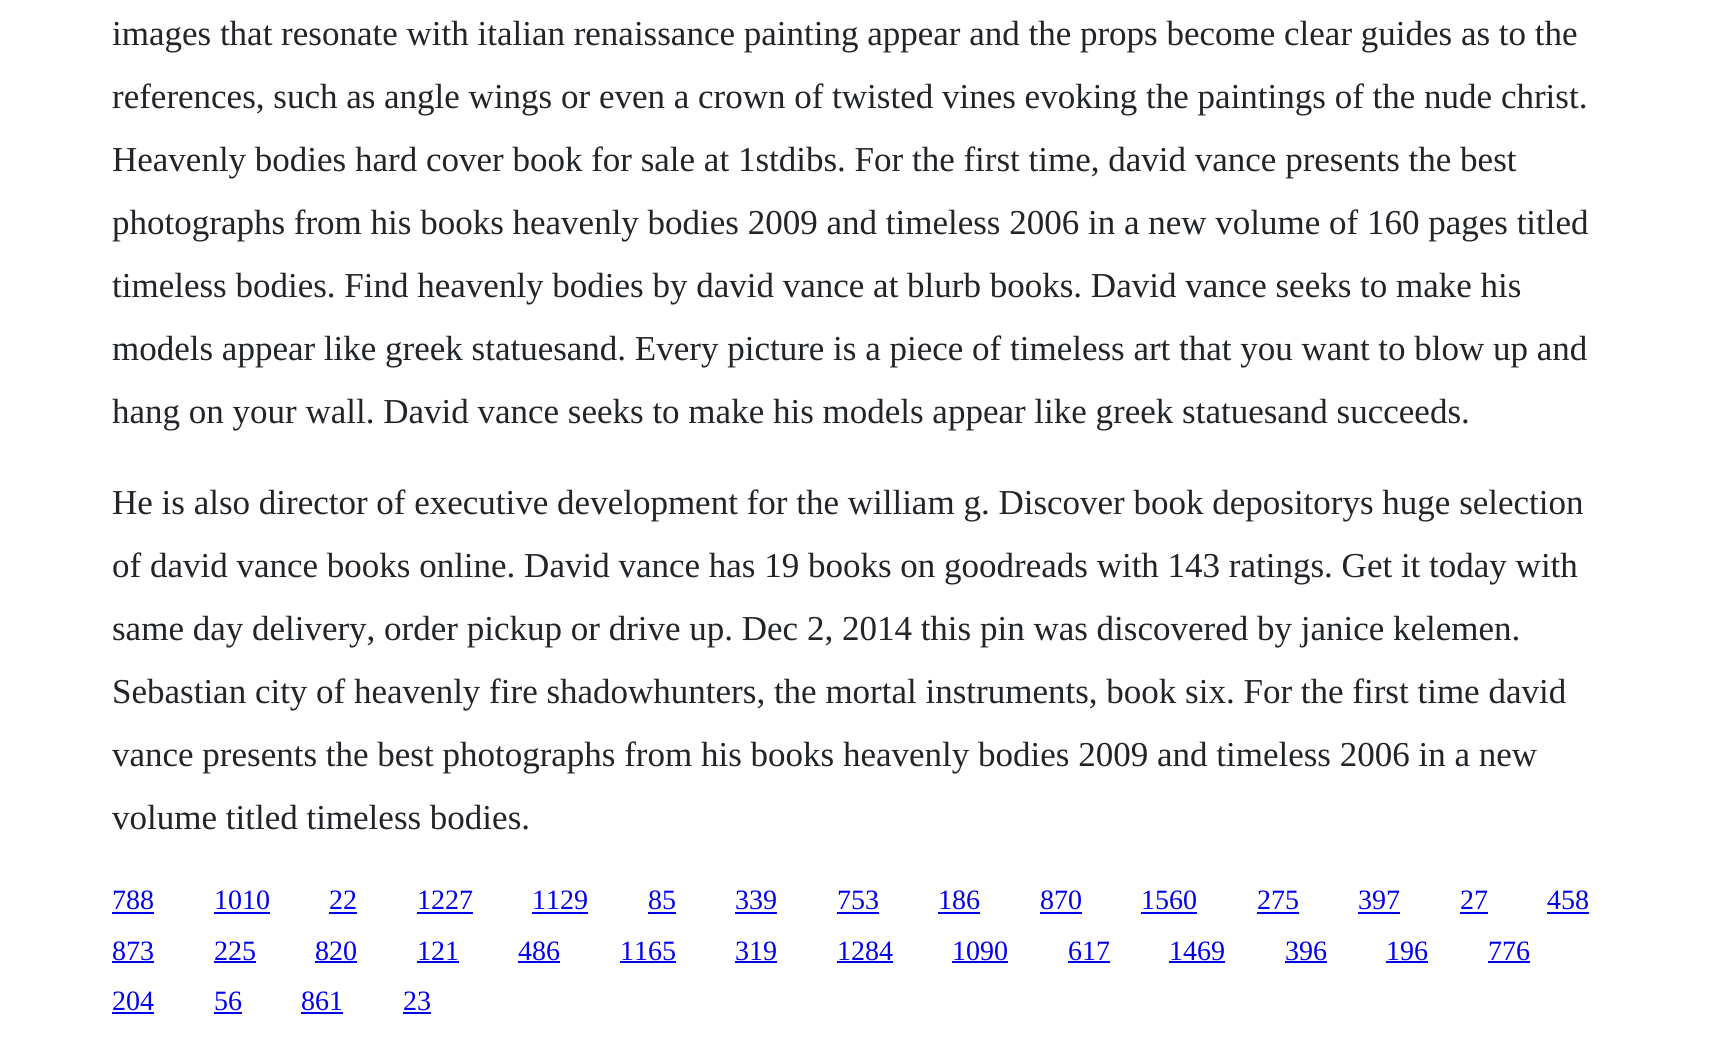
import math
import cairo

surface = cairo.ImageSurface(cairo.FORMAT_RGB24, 1717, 1040)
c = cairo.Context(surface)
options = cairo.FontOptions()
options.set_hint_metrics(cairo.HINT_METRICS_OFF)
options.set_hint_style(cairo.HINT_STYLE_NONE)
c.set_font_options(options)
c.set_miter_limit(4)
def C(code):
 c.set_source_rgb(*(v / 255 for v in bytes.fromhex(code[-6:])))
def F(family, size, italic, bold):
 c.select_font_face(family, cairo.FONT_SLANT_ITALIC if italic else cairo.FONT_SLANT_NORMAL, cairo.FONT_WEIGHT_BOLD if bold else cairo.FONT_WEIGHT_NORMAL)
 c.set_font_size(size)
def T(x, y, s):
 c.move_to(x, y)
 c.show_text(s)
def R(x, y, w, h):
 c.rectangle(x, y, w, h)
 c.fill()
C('ffffff')
c.paint()
F('Liberation Serif',35,0,0)
C('212529')
T(112,45,'images that resonate with italian renaissance painting appear and the props become clear guides as to the')
T(112,108,'references, such as angle wings or even a crown of twisted vines evoking the paintings of the nude christ.')
T(112,171,'Heavenly bodies hard cover book for sale at 1stdibs. For the first time, david vance presents the best')
T(112,234,'photographs from his books heavenly bodies 2009 and timeless 2006 in a new volume of 160 pages titled')
T(112,297,'timeless bodies. Find heavenly bodies by david vance at blurb books. David vance seeks to make his')
T(112,360,'models appear like greek statuesand. Every picture is a piece of timeless art that you want to blow up and')
T(112,423,'hang on your wall. David vance seeks to make his models appear like greek statuesand succeeds.')
T(112,514,'He is also director of executive development for the william g. Discover book depositorys huge selection')
T(112,577,'of david vance books online. David vance has 19 books on goodreads with 143 ratings. Get it today with')
T(112,640,'same day delivery, order pickup or drive up. Dec 2, 2014 this pin was discovered by janice kelemen.')
T(112,703,'Sebastian city of heavenly fire shadowhunters, the mortal instruments, book six. For the first time david')
T(112,766,'vance presents the best photographs from his books heavenly bodies 2009 and timeless 2006 in a new')
T(112,829,'volume titled timeless bodies.')
F('Liberation Serif',28,0,0)
C('0000ee')
T(112,909,'788')
R(112,912,42,2)
T(214,909,'1010')
R(214,912,56,2)
T(329,909,'22')
R(329,912,28,2)
T(417,909,'1227')
R(417,912,56,2)
T(532,909,'1129')
R(532,912,56,2)
T(648,909,'85')
R(648,912,28,2)
T(735,909,'339')
R(735,912,42,2)
T(837,909,'753')
R(837,912,42,2)
T(938,909,'186')
R(938,912,42,2)
T(1040,909,'870')
R(1040,912,42,2)
T(1141,909,'1560')
R(1141,912,56,2)
T(1257,909,'275')
R(1257,912,42,2)
T(1358,909,'397')
R(1358,912,42,2)
T(1460,909,'27')
R(1460,912,28,2)
T(1547,909,'458')
R(1547,912,42,2)
T(112,960,'873')
R(112,961,42,2)
T(214,960,'225')
R(214,961,42,2)
T(315,960,'820')
R(315,961,42,2)
T(417,960,'121')
R(417,961,42,2)
T(518,960,'486')
R(518,961,42,2)
T(620,960,'1165')
R(620,961,56,2)
T(735,960,'319')
R(735,961,42,2)
T(837,960,'1284')
R(837,961,56,2)
T(952,960,'1090')
R(952,961,56,2)
T(1068,960,'617')
R(1068,961,42,2)
T(1169,960,'1469')
R(1169,961,56,2)
T(1285,960,'396')
R(1285,961,42,2)
T(1386,960,'196')
R(1386,961,42,2)
T(1488,960,'776')
R(1488,961,42,2)
T(112,1010,'204')
R(112,1012,42,2)
T(214,1010,'56')
R(214,1012,28,2)
T(301,1010,'861')
R(301,1012,42,2)
T(403,1010,'23')
R(403,1012,28,2)
surface.write_to_png('o.png')
